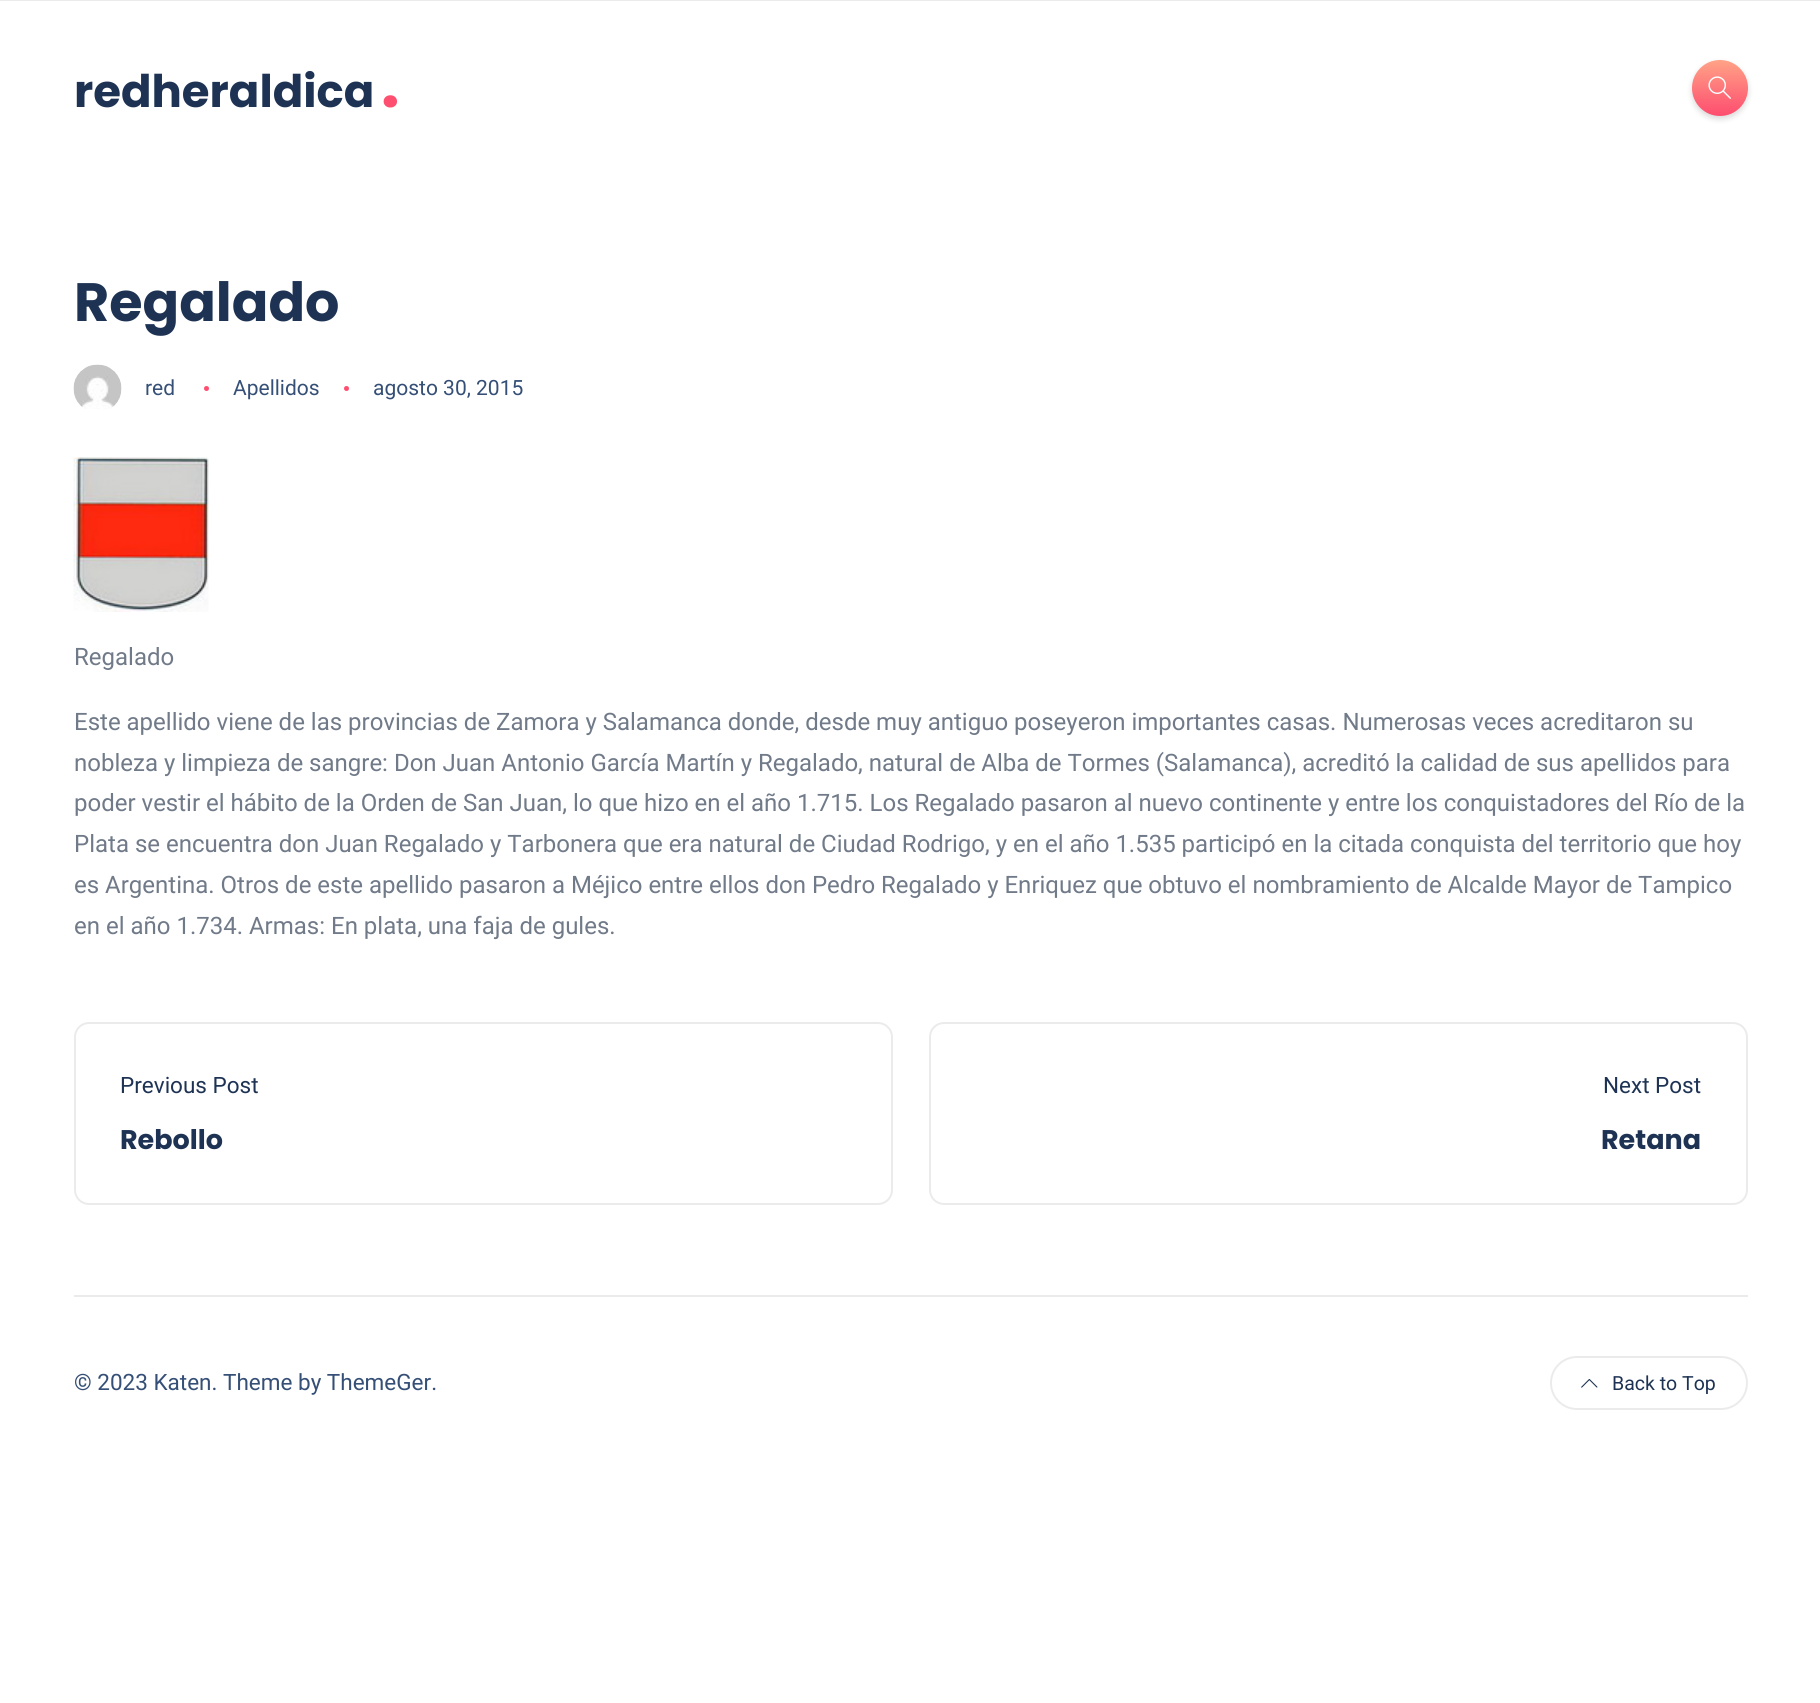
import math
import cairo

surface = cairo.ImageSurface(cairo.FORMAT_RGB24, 1820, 1703)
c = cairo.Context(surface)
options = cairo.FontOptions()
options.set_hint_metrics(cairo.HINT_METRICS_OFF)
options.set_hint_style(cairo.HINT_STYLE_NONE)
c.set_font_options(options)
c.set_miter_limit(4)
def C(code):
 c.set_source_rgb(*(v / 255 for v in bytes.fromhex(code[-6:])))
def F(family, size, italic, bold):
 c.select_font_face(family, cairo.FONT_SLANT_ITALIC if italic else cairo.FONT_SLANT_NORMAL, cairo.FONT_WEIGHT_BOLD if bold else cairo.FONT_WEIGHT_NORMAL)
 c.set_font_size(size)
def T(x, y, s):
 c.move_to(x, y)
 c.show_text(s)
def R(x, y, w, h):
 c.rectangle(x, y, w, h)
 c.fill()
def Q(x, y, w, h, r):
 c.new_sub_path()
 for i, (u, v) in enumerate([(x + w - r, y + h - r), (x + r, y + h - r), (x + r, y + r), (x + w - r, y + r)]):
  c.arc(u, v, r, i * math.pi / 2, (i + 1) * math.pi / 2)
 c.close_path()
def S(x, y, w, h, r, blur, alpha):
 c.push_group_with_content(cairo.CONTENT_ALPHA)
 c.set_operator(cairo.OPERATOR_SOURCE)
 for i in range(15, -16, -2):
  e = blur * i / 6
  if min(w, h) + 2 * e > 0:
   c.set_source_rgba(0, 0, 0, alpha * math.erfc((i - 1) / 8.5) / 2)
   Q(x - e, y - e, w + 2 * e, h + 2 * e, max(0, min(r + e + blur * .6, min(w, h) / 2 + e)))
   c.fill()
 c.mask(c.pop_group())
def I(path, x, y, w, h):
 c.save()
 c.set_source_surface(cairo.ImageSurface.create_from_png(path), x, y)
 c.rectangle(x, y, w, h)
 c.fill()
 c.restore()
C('ffffff')
c.paint()
C('ebebeb')
R(0,0,1820,1)
F('Poppins',45,0,1)
C('1e3354')
T(74,107,'redheraldica')
F('Poppins',66,0,1)
C('fe4f70')
T(381,107,'.')
C('000000')
S(1692,63,56,56,28,3,.15)
gradient = cairo.LinearGradient(1720,171,1720,60)
gradient.add_color_stop_rgba(0,1,0.639,0.529,1)
gradient.add_color_stop_rgba(.51,0.996,0.31,0.439,1)
gradient.add_color_stop_rgba(1,1,0.639,0.529,1)
c.set_source(gradient)
c.arc(1720,88,28,0,2 * math.pi)
c.fill()
I('1.png',1708,76,23,23)
F('Poppins',54,0,1)
C('1e3354')
T(74,321,'Regalado')
I('2.png',73,364,49,45)
F('Roboto',21,0,0)
C('354f76')
T(145,395,'red')
C('fe4f70')
c.new_path()
c.arc(206.5,388.5,2.5,0,2 * math.pi)
c.fill()
C('354f76')
T(233,395,'Apellidos')
C('fe4f70')
c.new_path()
c.arc(346.5,388.5,2.5,0,2 * math.pi)
c.fill()
C('354f76')
T(373,395,'agosto 30, 2015')
I('3.png',73,457,136,155)
F('Roboto',24,0,0)
C('707a88')
T(74,665,'Regalado')
T(74,730,'Este apellido viene de las provincias de Zamora y Salamanca donde, desde muy antiguo poseyeron importantes casas. Numerosas veces acreditaron su')
T(74,771,'nobleza y limpieza de sangre: Don Juan Antonio García Martín y Regalado, natural de Alba de Tormes (Salamanca), acreditó la calidad de sus apellidos para')
T(74,811,'poder vestir el hábito de la Orden de San Juan, lo que hizo en el año 1.715. Los Regalado pasaron al nuevo continente y entre los conquistadores del Río de la')
T(74,852,'Plata se encuentra don Juan Regalado y Tarbonera que era natural de Ciudad Rodrigo, y en el año 1.535 participó en la citada conquista del territorio que hoy')
T(74,893,'es Argentina. Otros de este apellido pasaron a Méjico entre ellos don Pedro Regalado y Enriquez que obtuvo el nombramiento de Alcalde Mayor de Tampico')
T(74,934,'en el año 1.734. Armas: En plata, una faja de gules.')
Q(75,1023,817,181,14)
C('ebebeb')
c.stroke()
F('Roboto',22.5,0,0)
C('1e3354')
T(120,1093,'Previous Post')
F('Poppins',27,0,1)
T(120,1149,'Rebollo')
Q(930,1023,817,181,14)
C('ebebeb')
c.stroke()
F('Roboto',22.5,0,0)
C('1e3354')
T(1603,1093,'Next Post')
F('Poppins',27,0,1)
T(1601,1149,'Retana')
C('ebebeb')
R(74,1295,1674,2)
F('Roboto',22.5,0,0)
C('354f76')
T(74,1390,'© 2023 Katen. Theme by ThemeGer.')
Q(1551,1357,196,52,26)
C('ebebeb')
c.stroke()
I('4.png',1581,1379,17,9)
F('Roboto',19.5,0,0)
C('1e3354')
T(1612,1390,'Back to Top')
surface.write_to_png('o.png')
